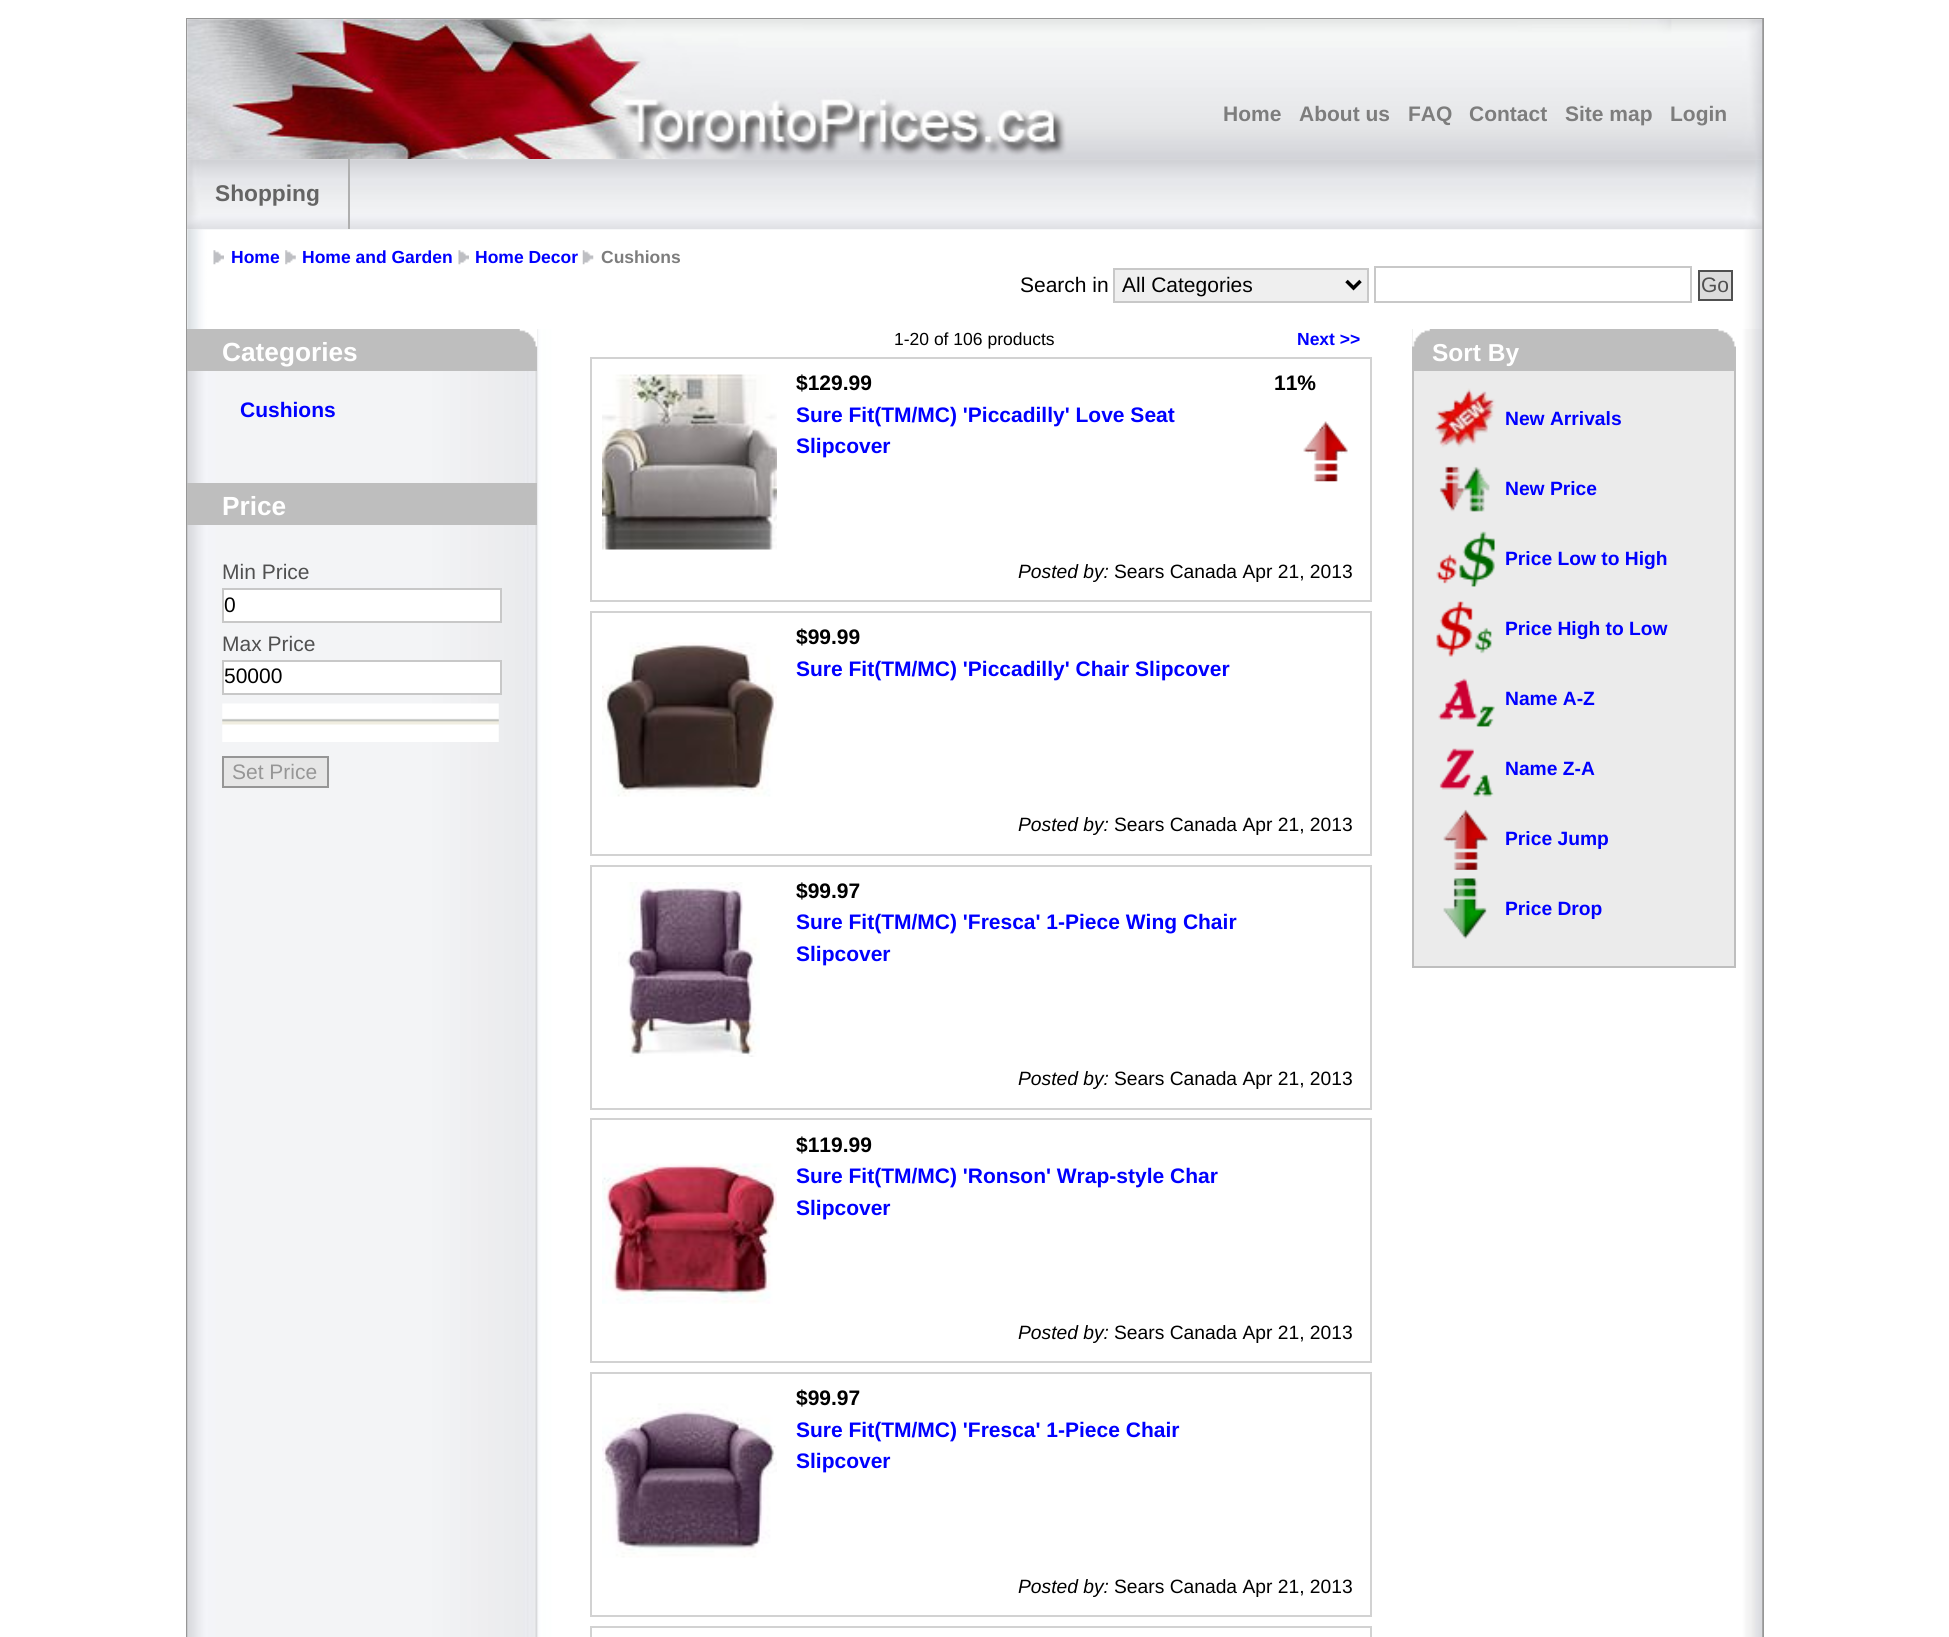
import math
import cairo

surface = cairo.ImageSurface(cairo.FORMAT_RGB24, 1949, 1637)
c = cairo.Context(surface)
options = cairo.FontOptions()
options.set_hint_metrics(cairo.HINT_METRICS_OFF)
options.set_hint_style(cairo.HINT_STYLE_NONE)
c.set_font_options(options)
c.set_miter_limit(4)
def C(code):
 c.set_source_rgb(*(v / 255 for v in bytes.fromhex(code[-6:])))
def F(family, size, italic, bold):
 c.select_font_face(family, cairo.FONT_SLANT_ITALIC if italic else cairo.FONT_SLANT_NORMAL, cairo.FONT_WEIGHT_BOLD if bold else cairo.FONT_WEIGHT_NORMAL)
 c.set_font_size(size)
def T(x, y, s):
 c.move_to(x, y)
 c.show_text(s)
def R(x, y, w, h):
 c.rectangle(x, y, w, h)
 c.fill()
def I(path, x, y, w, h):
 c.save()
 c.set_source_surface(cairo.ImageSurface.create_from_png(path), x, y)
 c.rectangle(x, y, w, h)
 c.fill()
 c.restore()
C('ffffff')
c.paint()
c.rectangle(187,19,1576,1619)
C('969696')
c.stroke()
C('f0f0f0')
R(187,19,1575,140)
I('1.png',187,19,1576,141)
F('Liberation Sans',21,0,1)
C('7d7d7d')
T(1223,121,'Home')
T(1299,121,'About us')
T(1408,121,'FAQ')
T(1469,121,'Contact')
T(1565,121,'Site map')
T(1670,121,'Login')
C('e1e1e1')
R(187,159,1575,70)
C('ffffff')
R(187,229,1,100)
I('3.png',187,229,1576,100)
I('2.png',187,159,1576,71)
C('afafaf')
R(348,159,2,70)
F('Liberation Sans',22.75,0,1)
C('646464')
T(215,201,'Shopping')
I('4.png',213,250,11,15)
F('Liberation Sans',17.5,0,1)
C('0000ff')
T(231,263,'Home')
I('5.png',285,250,11,15)
T(302,263,'Home and Garden')
I('4.png',458,250,11,15)
T(475,263,'Home Decor')
I('6.png',582,250,12,15)
C('7d7d7d')
T(601,263,'Cushions')
F('Liberation Sans',21,0,0)
C('000000')
T(1020,292,'Search in')
C('efefef')
c.rectangle(1114,269,254,33)
c.fill_preserve()
C('c8c8c8')
c.stroke()
c.new_path()
c.move_to(1346.5,281)
c.line_to(1353.5,288)
c.line_to(1360.5,281)
C('000000')
c.set_line_width(3.5)
c.stroke()
T(1122,292,'All Categories')
c.rectangle(1375,267,316,35)
C('c8c8c8')
c.set_line_width(2)
c.stroke()
C('dcdcdc')
c.rectangle(1699,271,33,29)
c.fill_preserve()
C('505050')
c.stroke()
T(1701,292,'Go')
I('7.png',187,329,1576,1308)
C('bebebe')
R(187,329,350,42)
I('8.png',519,329,19,18)
F('Liberation Sans',26.25,0,1)
C('ffffff')
T(222,361,'Categories')
F('Liberation Sans',21,0,1)
C('0000ff')
T(240,417,'Cushions')
C('bebebe')
R(187,483,350,42)
F('Liberation Sans',26.25,0,1)
C('ffffff')
T(222,515,'Price')
F('Liberation Sans',21,0,0)
C('505050')
T(222,579,'Min Price')
C('ffffff')
c.rectangle(223,589,278,33)
c.fill_preserve()
C('c8c8c8')
c.stroke()
C('000000')
T(224,612,'0')
C('505050')
T(222,651,'Max Price')
C('ffffff')
c.rectangle(223,661,278,33)
c.fill_preserve()
C('c8c8c8')
c.stroke()
C('000000')
T(224,683,'50000')
I('9.png',222,703,277,39)
C('e6e6e6')
c.rectangle(223,757,105,30)
c.fill_preserve()
C('969696')
c.stroke()
T(232,779,'Set Price')
F('Liberation Sans',17.5,0,0)
C('000000')
T(894,345,'1-20 of 106 products')
F('Liberation Sans',17.5,0,1)
C('0000ff')
T(1297,345,'Next >>')
c.rectangle(591,358,780,243)
C('d2d2d2')
c.stroke()
I('10.png',602,374,175,176)
F('Liberation Sans',21,0,1)
C('000000')
T(796,390,'$129.99')
C('0000ff')
T(796,422,'Sure Fit(TM/MC) \'Piccadilly\' Love Seat')
T(796,453,'Slipcover')
C('000000')
T(1274,390,'11%')
I('11.png',1303,421,45,61)
F('Liberation Sans',19.25,1,0)
T(1018,578,'Posted by:')
F('Liberation Sans',19.25,0,0)
T(1114,578,'Sears Canada Apr 21, 2013')
c.rectangle(591,612,780,243)
C('d2d2d2')
c.stroke()
F('Liberation Sans',21,0,1)
C('000000')
T(796,644,'$99.99')
I('12.png',602,642,175,155)
C('0000ff')
T(796,676,'Sure Fit(TM/MC) \'Piccadilly\' Chair Slipcover')
F('Liberation Sans',19.25,1,0)
C('000000')
T(1018,831,'Posted by:')
F('Liberation Sans',19.25,0,0)
T(1114,831,'Sears Canada Apr 21, 2013')
c.rectangle(591,866,780,243)
C('d2d2d2')
c.stroke()
I('13.png',618,882,142,175)
F('Liberation Sans',21,0,1)
C('000000')
T(796,898,'$99.97')
C('0000ff')
T(796,929,'Sure Fit(TM/MC) \'Fresca\' 1-Piece Wing Chair')
T(796,961,'Slipcover')
F('Liberation Sans',19.25,1,0)
C('000000')
T(1018,1085,'Posted by:')
F('Liberation Sans',19.25,0,0)
T(1114,1085,'Sears Canada Apr 21, 2013')
c.rectangle(591,1119,780,243)
C('d2d2d2')
c.stroke()
F('Liberation Sans',21,0,1)
C('000000')
T(796,1152,'$119.99')
I('14.png',602,1163,175,141)
C('0000ff')
T(796,1183,'Sure Fit(TM/MC) \'Ronson\' Wrap-style Char')
T(796,1215,'Slipcover')
F('Liberation Sans',19.25,1,0)
C('000000')
T(1018,1339,'Posted by:')
F('Liberation Sans',19.25,0,0)
T(1114,1339,'Sears Canada Apr 21, 2013')
c.rectangle(591,1373,780,243)
C('d2d2d2')
c.stroke()
F('Liberation Sans',21,0,1)
C('000000')
T(796,1405,'$99.97')
I('15.png',602,1403,175,155)
C('0000ff')
T(796,1437,'Sure Fit(TM/MC) \'Fresca\' 1-Piece Chair')
T(796,1468,'Slipcover')
F('Liberation Sans',19.25,1,0)
C('000000')
T(1018,1593,'Posted by:')
F('Liberation Sans',19.25,0,0)
T(1114,1593,'Sears Canada Apr 21, 2013')
c.rectangle(591,1627,780,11)
C('d2d2d2')
c.stroke()
C('ebebeb')
R(1414,371,320,595)
c.rectangle(1413,330,322,637)
C('bebebe')
c.stroke()
R(1414,331,320,40)
I('16.png',1412,329,18,18)
I('17.png',1718,329,18,18)
F('Liberation Sans',24.5,0,1)
C('ffffff')
T(1432,361,'Sort By')
I('18.png',1435,388,61,60)
F('Liberation Sans',19.25,0,1)
C('0000ff')
T(1505,425,'New Arrivals')
I('19.png',1439,466,51,46)
T(1505,495,'New Price')
I('20.png',1436,531,59,56)
T(1505,565,'Price Low to High')
I('21.png',1436,601,56,56)
T(1505,635,'Price High to Low')
I('22.png',1438,678,57,49)
T(1505,705,'Name A-Z')
I('23.png',1439,748,55,49)
T(1505,775,'Name Z-A')
I('24.png',1443,809,45,61)
T(1505,845,'Price Jump')
I('25.png',1443,878,44,61)
T(1505,915,'Price Drop')
surface.write_to_png('o.png')
